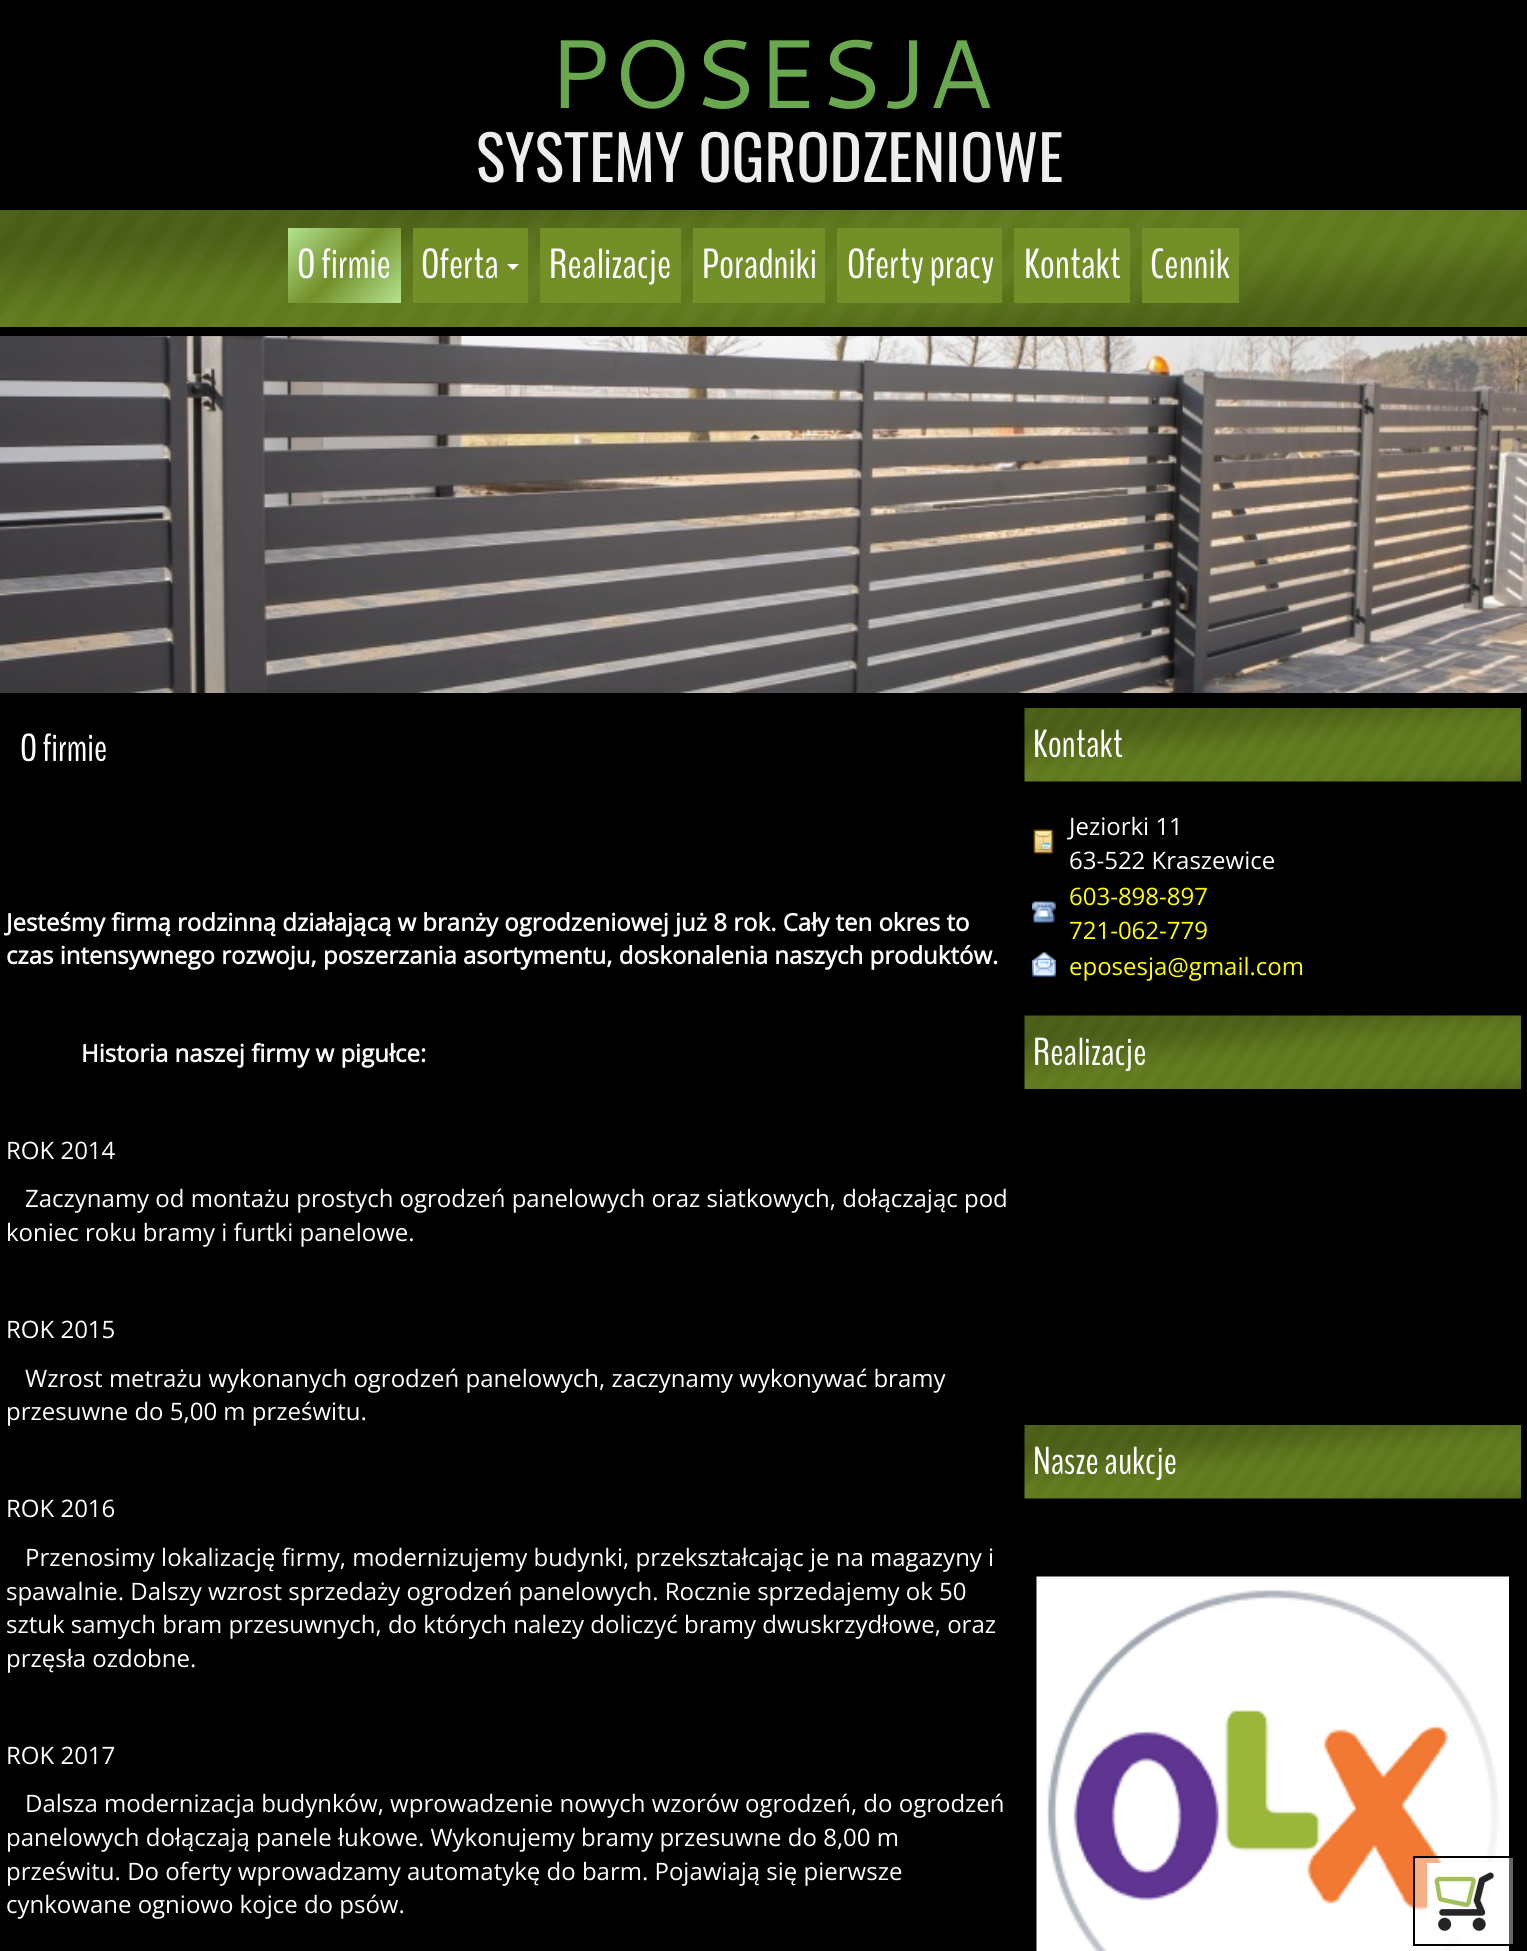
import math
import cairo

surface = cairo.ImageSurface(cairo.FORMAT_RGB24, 1527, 1951)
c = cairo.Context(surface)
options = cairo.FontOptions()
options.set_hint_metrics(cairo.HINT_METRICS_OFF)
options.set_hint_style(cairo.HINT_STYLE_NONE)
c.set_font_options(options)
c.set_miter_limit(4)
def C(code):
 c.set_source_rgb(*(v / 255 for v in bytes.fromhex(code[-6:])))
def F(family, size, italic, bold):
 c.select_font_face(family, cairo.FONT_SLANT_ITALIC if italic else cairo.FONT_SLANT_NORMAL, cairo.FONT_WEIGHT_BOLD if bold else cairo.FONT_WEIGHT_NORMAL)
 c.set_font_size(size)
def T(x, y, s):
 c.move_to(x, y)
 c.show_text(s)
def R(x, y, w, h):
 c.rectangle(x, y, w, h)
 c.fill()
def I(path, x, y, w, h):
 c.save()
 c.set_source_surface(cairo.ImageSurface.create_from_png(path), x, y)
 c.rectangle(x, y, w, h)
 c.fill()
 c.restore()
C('000000')
c.paint()
F('Cantarell',97.5,0,0)
C('6aa84f')
T(547,108,'POSESJA')
F('Oswald',61.5,0,0)
C('eeeeee')
T(476,182,'SYSTEMY OGRODZENIOWE')
I('9.png',1036,1576,473,375)
c.set_source_rgba(1,1,1,0.4)
c.rectangle(1414,1857,100,88)
c.fill_preserve()
C('000000')
c.stroke()
C('ffffff')
R(1427,1863,66,75)
I('1.png',1434,1872,60,59)
I('2.png',0,210,1527,117)
gradient = cairo.LinearGradient(391,312,297,219)
gradient.add_color_stop_rgba(0,0.706,0.89,0.569,1)
gradient.add_color_stop_rgba(.5,0.447,0.561,0.157,1)
gradient.add_color_stop_rgba(1,0.706,0.89,0.569,1)
c.set_source(gradient)
R(288,228,113,75)
F('BenchNine',42,0,0)
C('ffffff')
T(297,278,'O firmie')
C('728f28')
R(413,228,115,75)
C('ffffff')
T(421,278,'Oferta')
c.new_path()
c.move_to(507,264)
c.line_to(519,264)
c.line_to(513,270)
c.close_path()
c.fill()
C('728f28')
R(540,228,141,75)
C('ffffff')
T(549,278,'Realizacje')
C('728f28')
R(693,228,132,75)
C('ffffff')
T(702,278,'Poradniki')
C('728f28')
R(837,228,165,75)
C('ffffff')
T(847,278,'Oferty pracy')
C('728f28')
R(1014,228,116,75)
C('ffffff')
T(1024,278,'Kontakt')
C('728f28')
R(1142,228,97,75)
C('ffffff')
T(1150,278,'Cennik')
I('3.png',0,336,1527,357)
F('BenchNine',39,0,0)
T(20,761,'O firmie')
F('Open Sans',24,0,1)
T(6,931,'Jesteśmy firmą rodzinną działającą w branży ogrodzeniowej już 8 rok. Cały ten okres to')
T(6,964,'czas intensywnego rozwoju, poszerzania asortymentu, doskonalenia naszych produktów.')
T(81,1062,'Historia naszej firmy w pigułce:')
F('Open Sans',24,0,0)
T(6,1159,'ROK 2014')
T(25,1207,'Zaczynamy od montażu prostych ogrodzeń panelowych oraz siatkowych, dołączając pod')
T(6,1241,'koniec roku bramy i furtki panelowe.')
T(6,1338,'ROK 2015')
T(25,1387,'Wzrost metrażu wykonanych ogrodzeń panelowych, zaczynamy wykonywać bramy')
T(6,1420,'przesuwne do 5,00 m prześwitu.')
T(6,1517,'ROK 2016')
T(25,1566,'Przenosimy lokalizację firmy, modernizujemy budynki, przekształcając je na magazyny i')
T(6,1600,'spawalnie. Dalszy wzrost sprzedaży ogrodzeń panelowych. Rocznie sprzedajemy ok 50')
T(6,1633,'sztuk samych bram przesuwnych, do których nalezy doliczyć bramy dwuskrzydłowe, oraz')
T(6,1667,'przęsła ozdobne.')
T(6,1764,'ROK 2017')
T(25,1812,'Dalsza modernizacja budynków, wprowadzenie nowych wzorów ogrodzeń, do ogrodzeń')
T(6,1846,'panelowych dołączają panele łukowe. Wykonujemy bramy przesuwne do 8,00 m')
T(6,1880,'prześwitu. Do oferty wprowadzamy automatykę do barm. Pojawiają się pierwsze')
T(6,1913,'cynkowane ogniowo kojce do psów.')
I('4.png',1024,708,497,74)
F('BenchNine',39,0,0)
T(1033,757,'Kontakt')
I('5.png',1033,829,21,25)
F('Open Sans',24,0,0)
T(1069,835,'Jeziorki 11')
T(1069,869,'63-522 Kraszewice')
I('6.png',1032,901,24,22)
C('ffff00')
T(1069,905,'603-898-897')
T(1069,939,'721-062-779')
I('7.png',1032,952,24,25)
T(1069,975,'eposesja@gmail.com')
I('8.png',1024,1015,497,74)
F('BenchNine',39,0,0)
C('ffffff')
T(1033,1065,'Realizacje')
I('4.png',1024,1425,497,74)
T(1033,1474,'Nasze aukcje')
surface.write_to_png('o.png')
